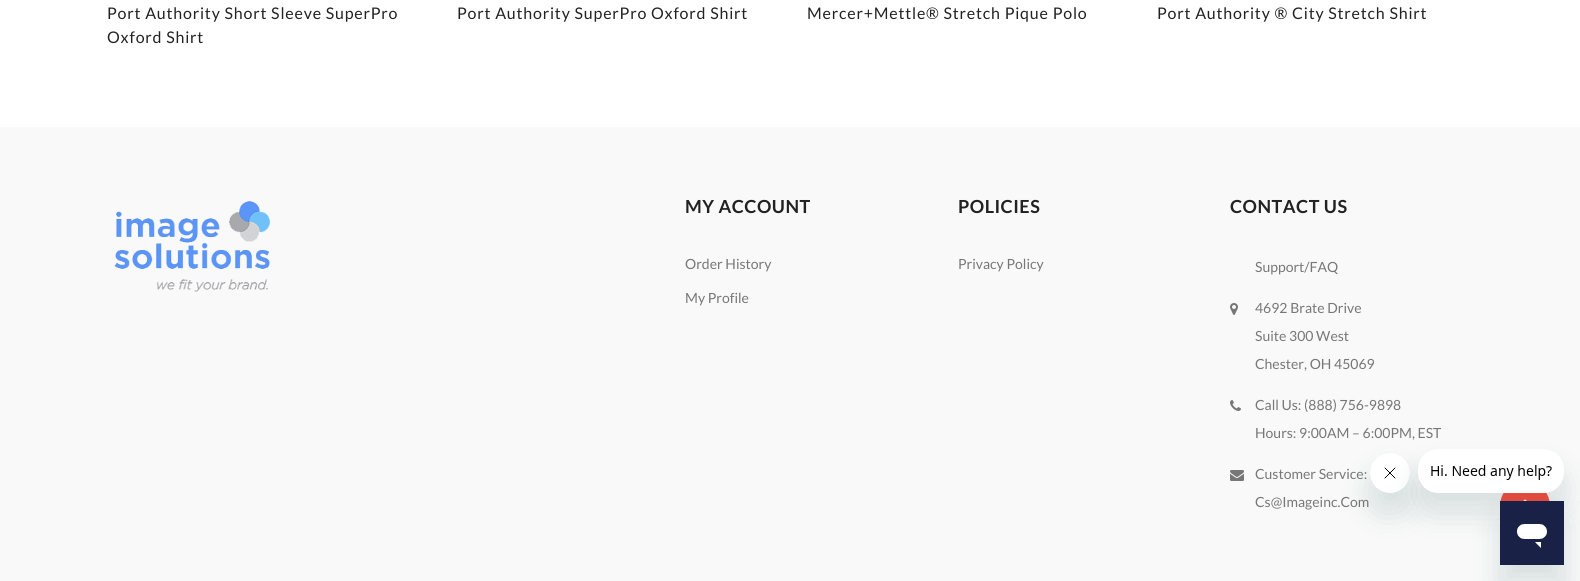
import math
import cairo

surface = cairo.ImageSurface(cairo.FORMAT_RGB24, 1580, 581)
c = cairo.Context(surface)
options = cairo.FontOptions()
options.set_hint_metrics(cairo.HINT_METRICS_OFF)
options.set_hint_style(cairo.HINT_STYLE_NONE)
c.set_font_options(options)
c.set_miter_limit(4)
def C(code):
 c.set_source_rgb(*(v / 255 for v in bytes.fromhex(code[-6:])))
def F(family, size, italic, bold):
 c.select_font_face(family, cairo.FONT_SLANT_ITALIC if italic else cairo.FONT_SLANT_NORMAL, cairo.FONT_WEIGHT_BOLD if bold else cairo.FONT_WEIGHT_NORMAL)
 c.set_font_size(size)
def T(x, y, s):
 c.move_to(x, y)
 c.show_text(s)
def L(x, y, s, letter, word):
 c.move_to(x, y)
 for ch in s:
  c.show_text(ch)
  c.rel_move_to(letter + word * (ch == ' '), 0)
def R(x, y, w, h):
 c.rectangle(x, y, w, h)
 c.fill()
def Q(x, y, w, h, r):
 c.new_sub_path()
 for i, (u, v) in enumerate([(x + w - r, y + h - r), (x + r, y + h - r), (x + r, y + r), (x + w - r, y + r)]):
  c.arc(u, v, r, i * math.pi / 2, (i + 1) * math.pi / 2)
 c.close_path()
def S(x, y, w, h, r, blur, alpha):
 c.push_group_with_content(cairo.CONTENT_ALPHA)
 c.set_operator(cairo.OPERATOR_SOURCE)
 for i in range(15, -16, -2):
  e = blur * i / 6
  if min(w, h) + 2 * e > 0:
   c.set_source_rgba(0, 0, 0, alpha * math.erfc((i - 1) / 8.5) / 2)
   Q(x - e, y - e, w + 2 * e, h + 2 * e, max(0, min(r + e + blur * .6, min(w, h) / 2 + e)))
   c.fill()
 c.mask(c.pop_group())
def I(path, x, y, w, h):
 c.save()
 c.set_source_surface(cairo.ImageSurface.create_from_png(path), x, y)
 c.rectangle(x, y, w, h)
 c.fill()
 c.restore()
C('ffffff')
c.paint()
F('Lato',16,0,0)
C('222222')
L(107,19,'Port Authority Short Sleeve SuperPro',.8,0)
L(107,43,'Oxford Shirt',.8,0)
L(457,19,'Port Authority SuperPro Oxford Shirt',.8,0)
L(807,19,'Mercer+Mettle® Stretch Pique Polo',.8,0)
L(1157,19,'Port Authority ® City Stretch Shirt',.8,0)
C('f9f9f9')
R(0,127,1580,454)
I('1.png',114,201,156,91)
F('Lato',18,0,1)
C('222222')
L(685,213,'MY ACCOUNT',.5,0)
F('Lato',14,0,0)
C('777777')
T(685,269,'Order History')
T(685,303,'My Profile')
F('Lato',18,0,1)
C('222222')
L(958,213,'POLICIES',.5,0)
F('Lato',14,0,0)
C('777777')
T(958,269,'Privacy Policy')
F('Lato',18,0,1)
C('222222')
L(1230,213,'CONTACT US',.5,0)
F('Lato',14,0,0)
C('777777')
T(1255,272,'Support/FAQ')
I('2.png',1230,303,8,12)
T(1255,313,'4692 Brate Drive')
T(1255,341,'Suite 300 West')
T(1255,369,'Chester, OH 45069')
I('3.png',1230,400,11,11)
T(1255,410,'Call Us: (888) 756-9898')
T(1255,438,'Hours: 9:00AM – 6:00PM, EST')
I('4.png',1230,470,14,11)
T(1255,479,'Customer Service:')
T(1255,507,'Cs@Imageinc.Com')
C('ff4c3b')
c.new_path()
c.arc(1525,506,25,0,2 * math.pi)
c.fill()
I('5.png',1523,499,4,2)
C('17494d')
S(1370,473,40,40,20,15,.15)
I('7.png',1370,453,40,40)
S(1418,469,146,44,20,15,.15)
I('6.png',1418,449,146,44)
S(1500,521,64,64,0,15,.15)
I('8.png',1500,501,64,64)
surface.write_to_png('o.png')
